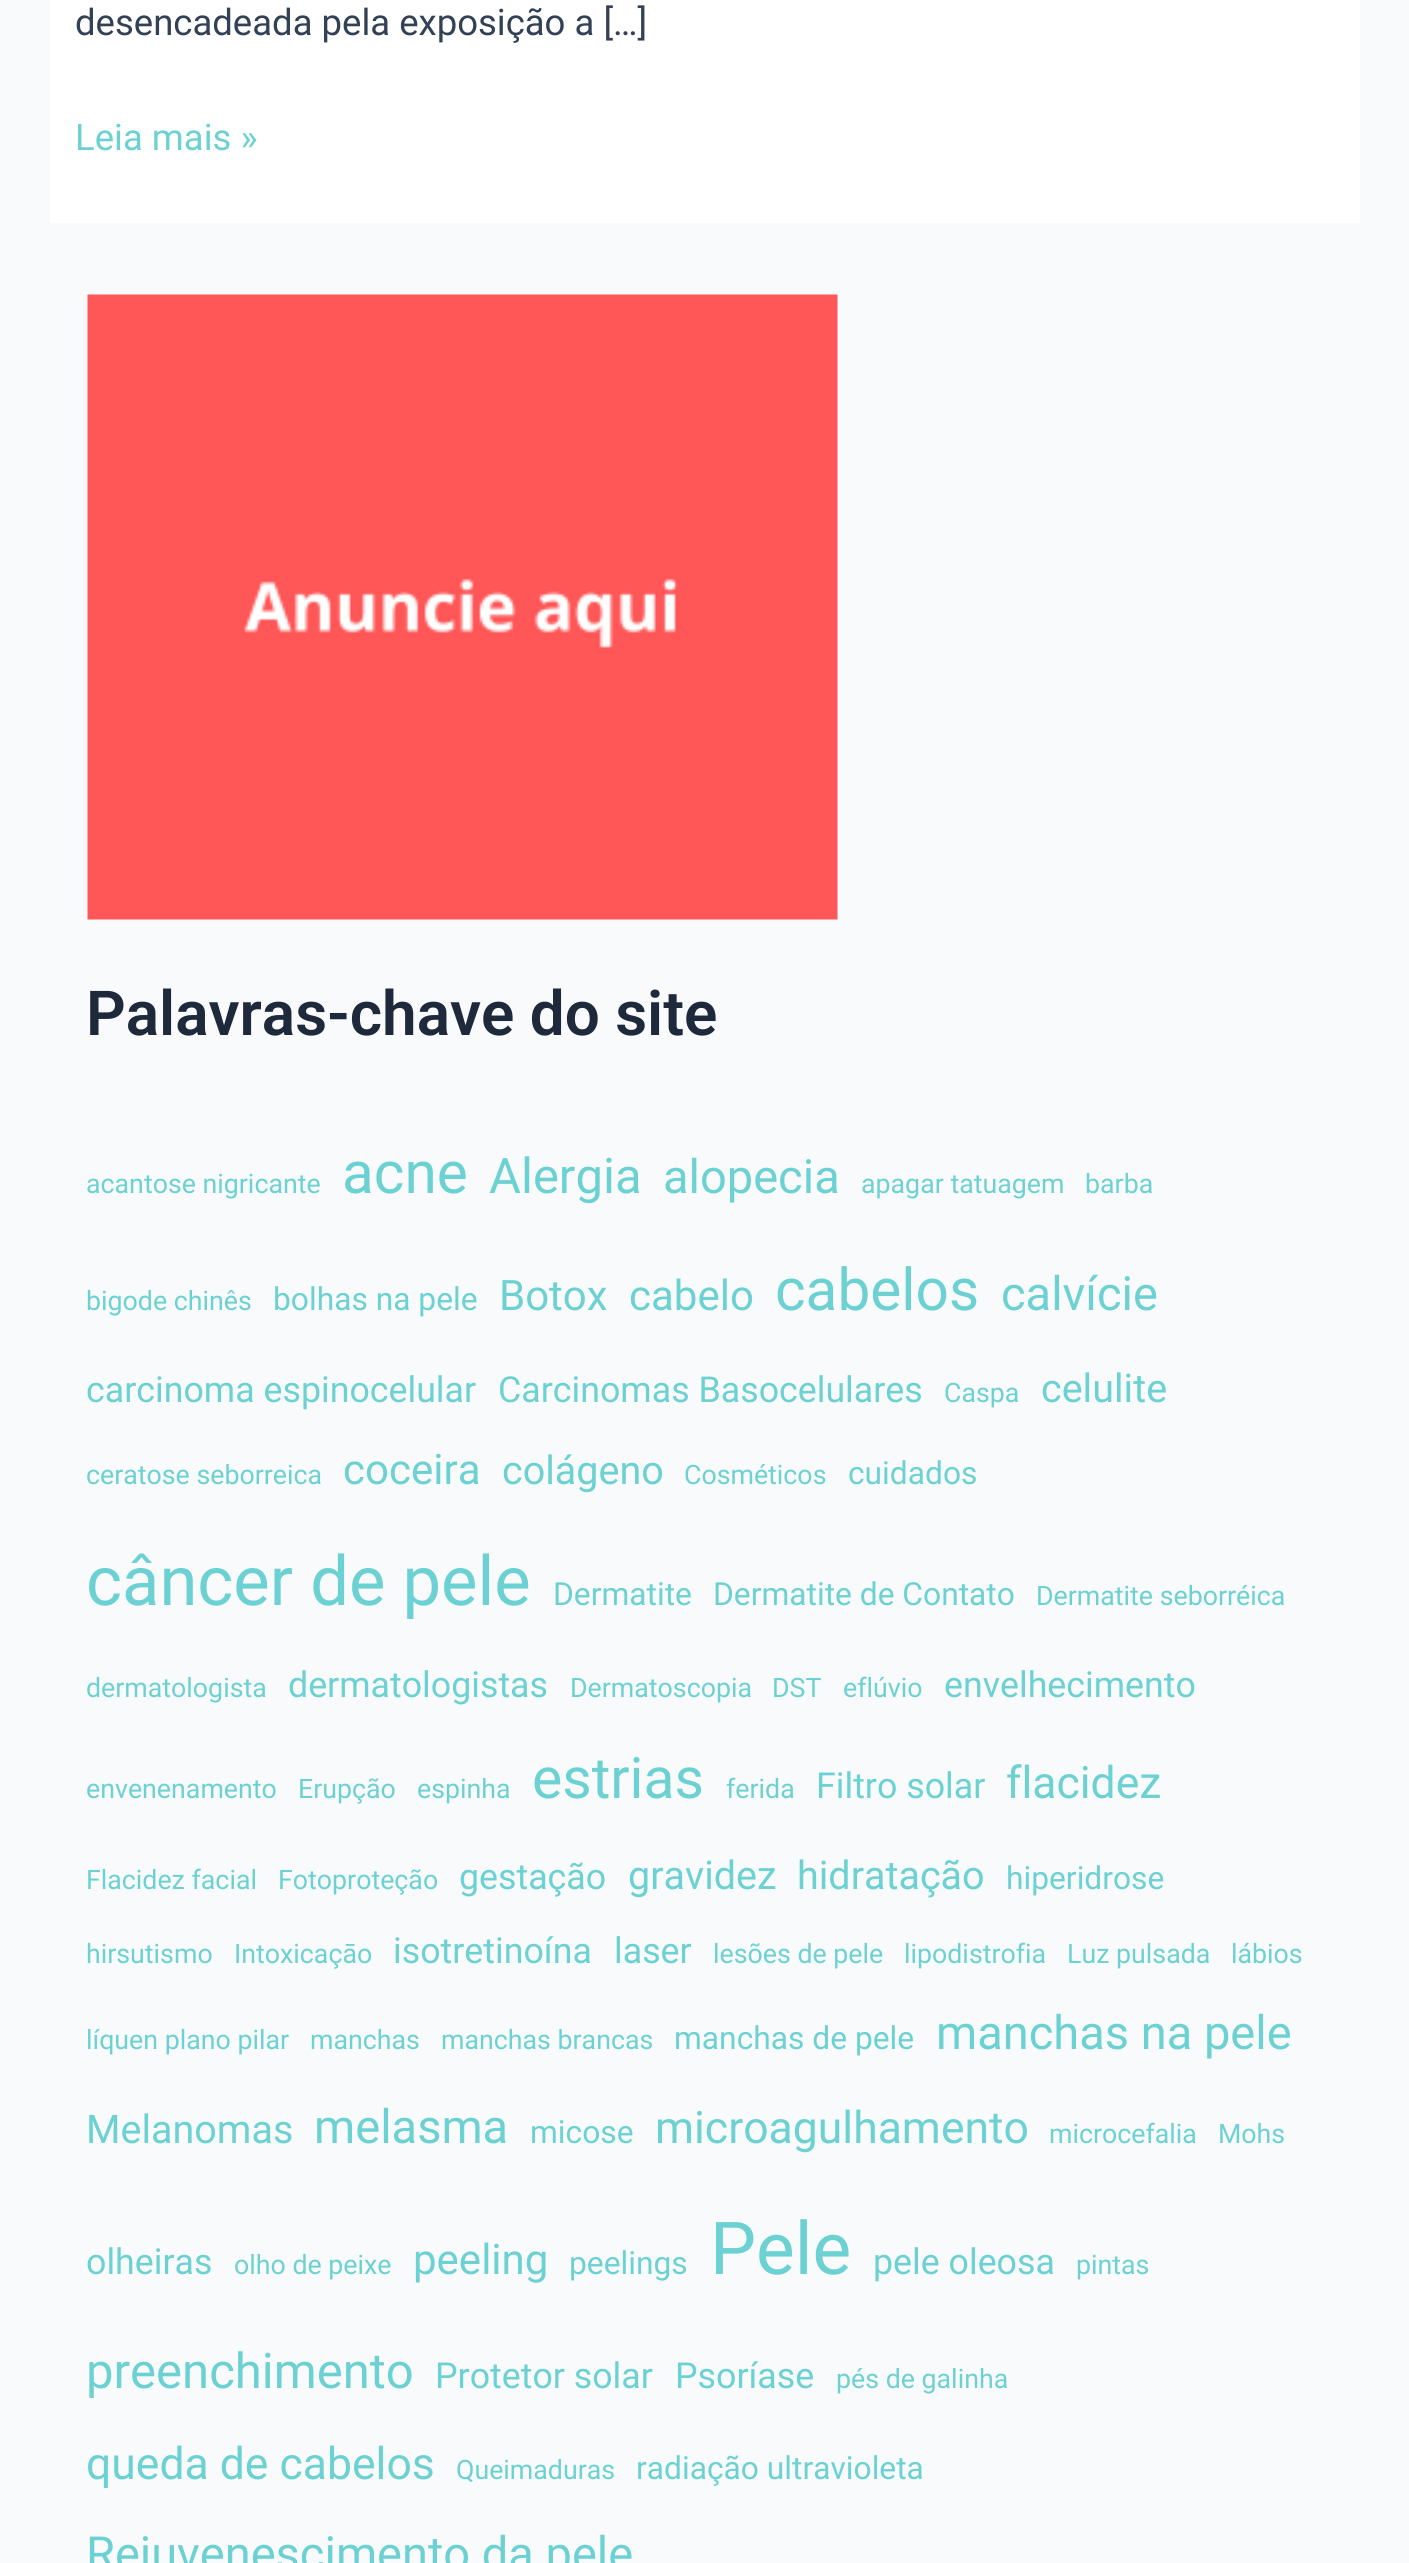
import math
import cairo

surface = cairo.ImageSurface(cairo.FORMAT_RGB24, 1409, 2563)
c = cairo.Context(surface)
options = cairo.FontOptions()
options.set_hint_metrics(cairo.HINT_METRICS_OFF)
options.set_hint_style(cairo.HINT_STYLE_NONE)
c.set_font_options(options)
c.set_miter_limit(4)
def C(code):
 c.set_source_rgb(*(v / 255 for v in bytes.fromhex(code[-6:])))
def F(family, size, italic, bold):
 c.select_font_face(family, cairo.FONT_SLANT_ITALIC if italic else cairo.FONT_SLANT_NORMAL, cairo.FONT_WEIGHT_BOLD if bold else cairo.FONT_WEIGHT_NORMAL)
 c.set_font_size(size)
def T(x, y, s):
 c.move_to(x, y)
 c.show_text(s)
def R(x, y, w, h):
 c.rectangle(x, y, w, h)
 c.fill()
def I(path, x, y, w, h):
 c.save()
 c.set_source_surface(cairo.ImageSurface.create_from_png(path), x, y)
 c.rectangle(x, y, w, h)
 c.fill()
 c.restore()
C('f9fafb')
c.paint()
C('ffffff')
R(50,0,1310,223)
F('Roboto',36.5,0,0)
C('334155')
T(75,35,'desencadeada pela exposição a […]')
C('6cd1d2')
T(75,150,'Leia mais »')
I('1.png',87,294,751,626)
F('Roboto SemiBold',62,0,0)
C('1e293b')
T(86,1035,'Palavras-chave do site')
F('Roboto',26.75,0,0)
C('6cd1d2')
T(86,1193,'acantose nigricante')
F('Roboto',58.5,0,0)
T(342,1193,'acne')
F('Roboto',49,0,0)
T(489,1193,'Alergia')
F('Roboto',47,0,0)
T(663,1193,'alopecia')
F('Roboto',26.75,0,0)
T(861,1193,'apagar tatuagem')
T(1085,1193,'barba')
T(86,1310,'bigode chinês')
F('Roboto',31.75,0,0)
T(273,1310,'bolhas na pele')
F('Roboto',42,0,0)
T(499,1310,'Botox')
T(629,1310,'cabelo')
F('Roboto',58.5,0,0)
T(775,1310,'cabelos')
F('Roboto',47,0,0)
T(1001,1310,'calvície')
F('Roboto',35.75,0,0)
T(86,1402,'carcinoma espinocelular')
T(498,1402,'Carcinomas Basocelulares')
F('Roboto',26.75,0,0)
T(944,1402,'Caspa')
F('Roboto',39.5,0,0)
T(1041,1402,'celulite')
F('Roboto',26.75,0,0)
T(86,1484,'ceratose seborreica')
F('Roboto',42,0,0)
T(343,1484,'coceira')
F('Roboto',39.5,0,0)
T(502,1484,'colágeno')
F('Roboto',26.75,0,0)
T(684,1484,'Cosméticos')
F('Roboto',31.75,0,0)
T(848,1484,'cuidados')
F('Roboto',68.75,0,0)
T(86,1605,'câncer de pele')
F('Roboto',31.75,0,0)
T(553,1605,'Dermatite')
T(713,1605,'Dermatite de Contato')
F('Roboto',26.75,0,0)
T(1036,1605,'Dermatite seborréica')
T(86,1697,'dermatologista')
F('Roboto',35.75,0,0)
T(288,1697,'dermatologistas')
F('Roboto',26.75,0,0)
T(570,1697,'Dermatoscopia')
T(772,1697,'DST')
T(843,1697,'eflúvio')
F('Roboto',35.75,0,0)
T(944,1697,'envelhecimento')
F('Roboto',26.75,0,0)
T(86,1798,'envenenamento')
T(298,1798,'Erupção')
T(417,1798,'espinha')
F('Roboto',57,0,0)
T(532,1798,'estrias')
F('Roboto',26.75,0,0)
T(726,1798,'ferida')
F('Roboto',35.75,0,0)
T(816,1798,'Filtro solar')
F('Roboto',44.5,0,0)
T(1006,1798,'flacidez')
F('Roboto',26.75,0,0)
T(86,1889,'Flacidez facial')
T(278,1889,'Fotoproteção')
F('Roboto',35.75,0,0)
T(459,1889,'gestação')
F('Roboto',39.5,0,0)
T(628,1889,'gravidez')
T(797,1889,'hidratação')
F('Roboto',31.75,0,0)
T(1006,1889,'hiperidrose')
F('Roboto',26.75,0,0)
T(86,1963,'hirsutismo')
T(234,1963,'Intoxicaçāo')
F('Roboto',35.75,0,0)
T(393,1963,'isotretinoína')
T(614,1963,'laser')
F('Roboto',26.75,0,0)
T(713,1963,'lesões de pele')
T(904,1963,'lipodistrofia')
T(1067,1963,'Luz pulsada')
T(1231,1963,'lábios')
T(86,2049,'líquen plano pilar')
T(310,2049,'manchas')
T(441,2049,'manchas brancas')
F('Roboto',31.75,0,0)
T(674,2049,'manchas de pele')
F('Roboto',47,0,0)
T(936,2049,'manchas na pele')
F('Roboto',39.5,0,0)
T(86,2143,'Melanomas')
F('Roboto',47,0,0)
T(314,2143,'melasma')
F('Roboto',31.75,0,0)
T(530,2143,'micose')
F('Roboto',44.5,0,0)
T(655,2143,'microagulhamento')
F('Roboto',26.75,0,0)
T(1049,2143,'microcefalia')
T(1218,2143,'Mohs')
F('Roboto',35.75,0,0)
T(86,2274,'olheiras')
F('Roboto',26.75,0,0)
T(234,2274,'olho de peixe')
F('Roboto',42,0,0)
T(413,2274,'peeling')
F('Roboto',31.75,0,0)
T(569,2274,'peelings')
F('Roboto',73,0,0)
T(710,2274,'Pele')
F('Roboto',35.75,0,0)
T(873,2274,'pele oleosa')
F('Roboto',26.75,0,0)
T(1076,2274,'pintas')
F('Roboto',49,0,0)
T(86,2388,'preenchimento')
F('Roboto',35.75,0,0)
T(435,2388,'Protetor solar')
T(675,2388,'Psoríase')
F('Roboto',26.75,0,0)
T(836,2388,'pés de galinha')
F('Roboto',44.5,0,0)
T(86,2479,'queda de cabelos')
F('Roboto',26.75,0,0)
T(456,2479,'Queimaduras')
F('Roboto',31.75,0,0)
T(636,2479,'radiação ultravioleta')
F('Roboto',47,0,0)
T(86,2570,'Rejuvenescimento da pele')
surface.write_to_png('o.png')
